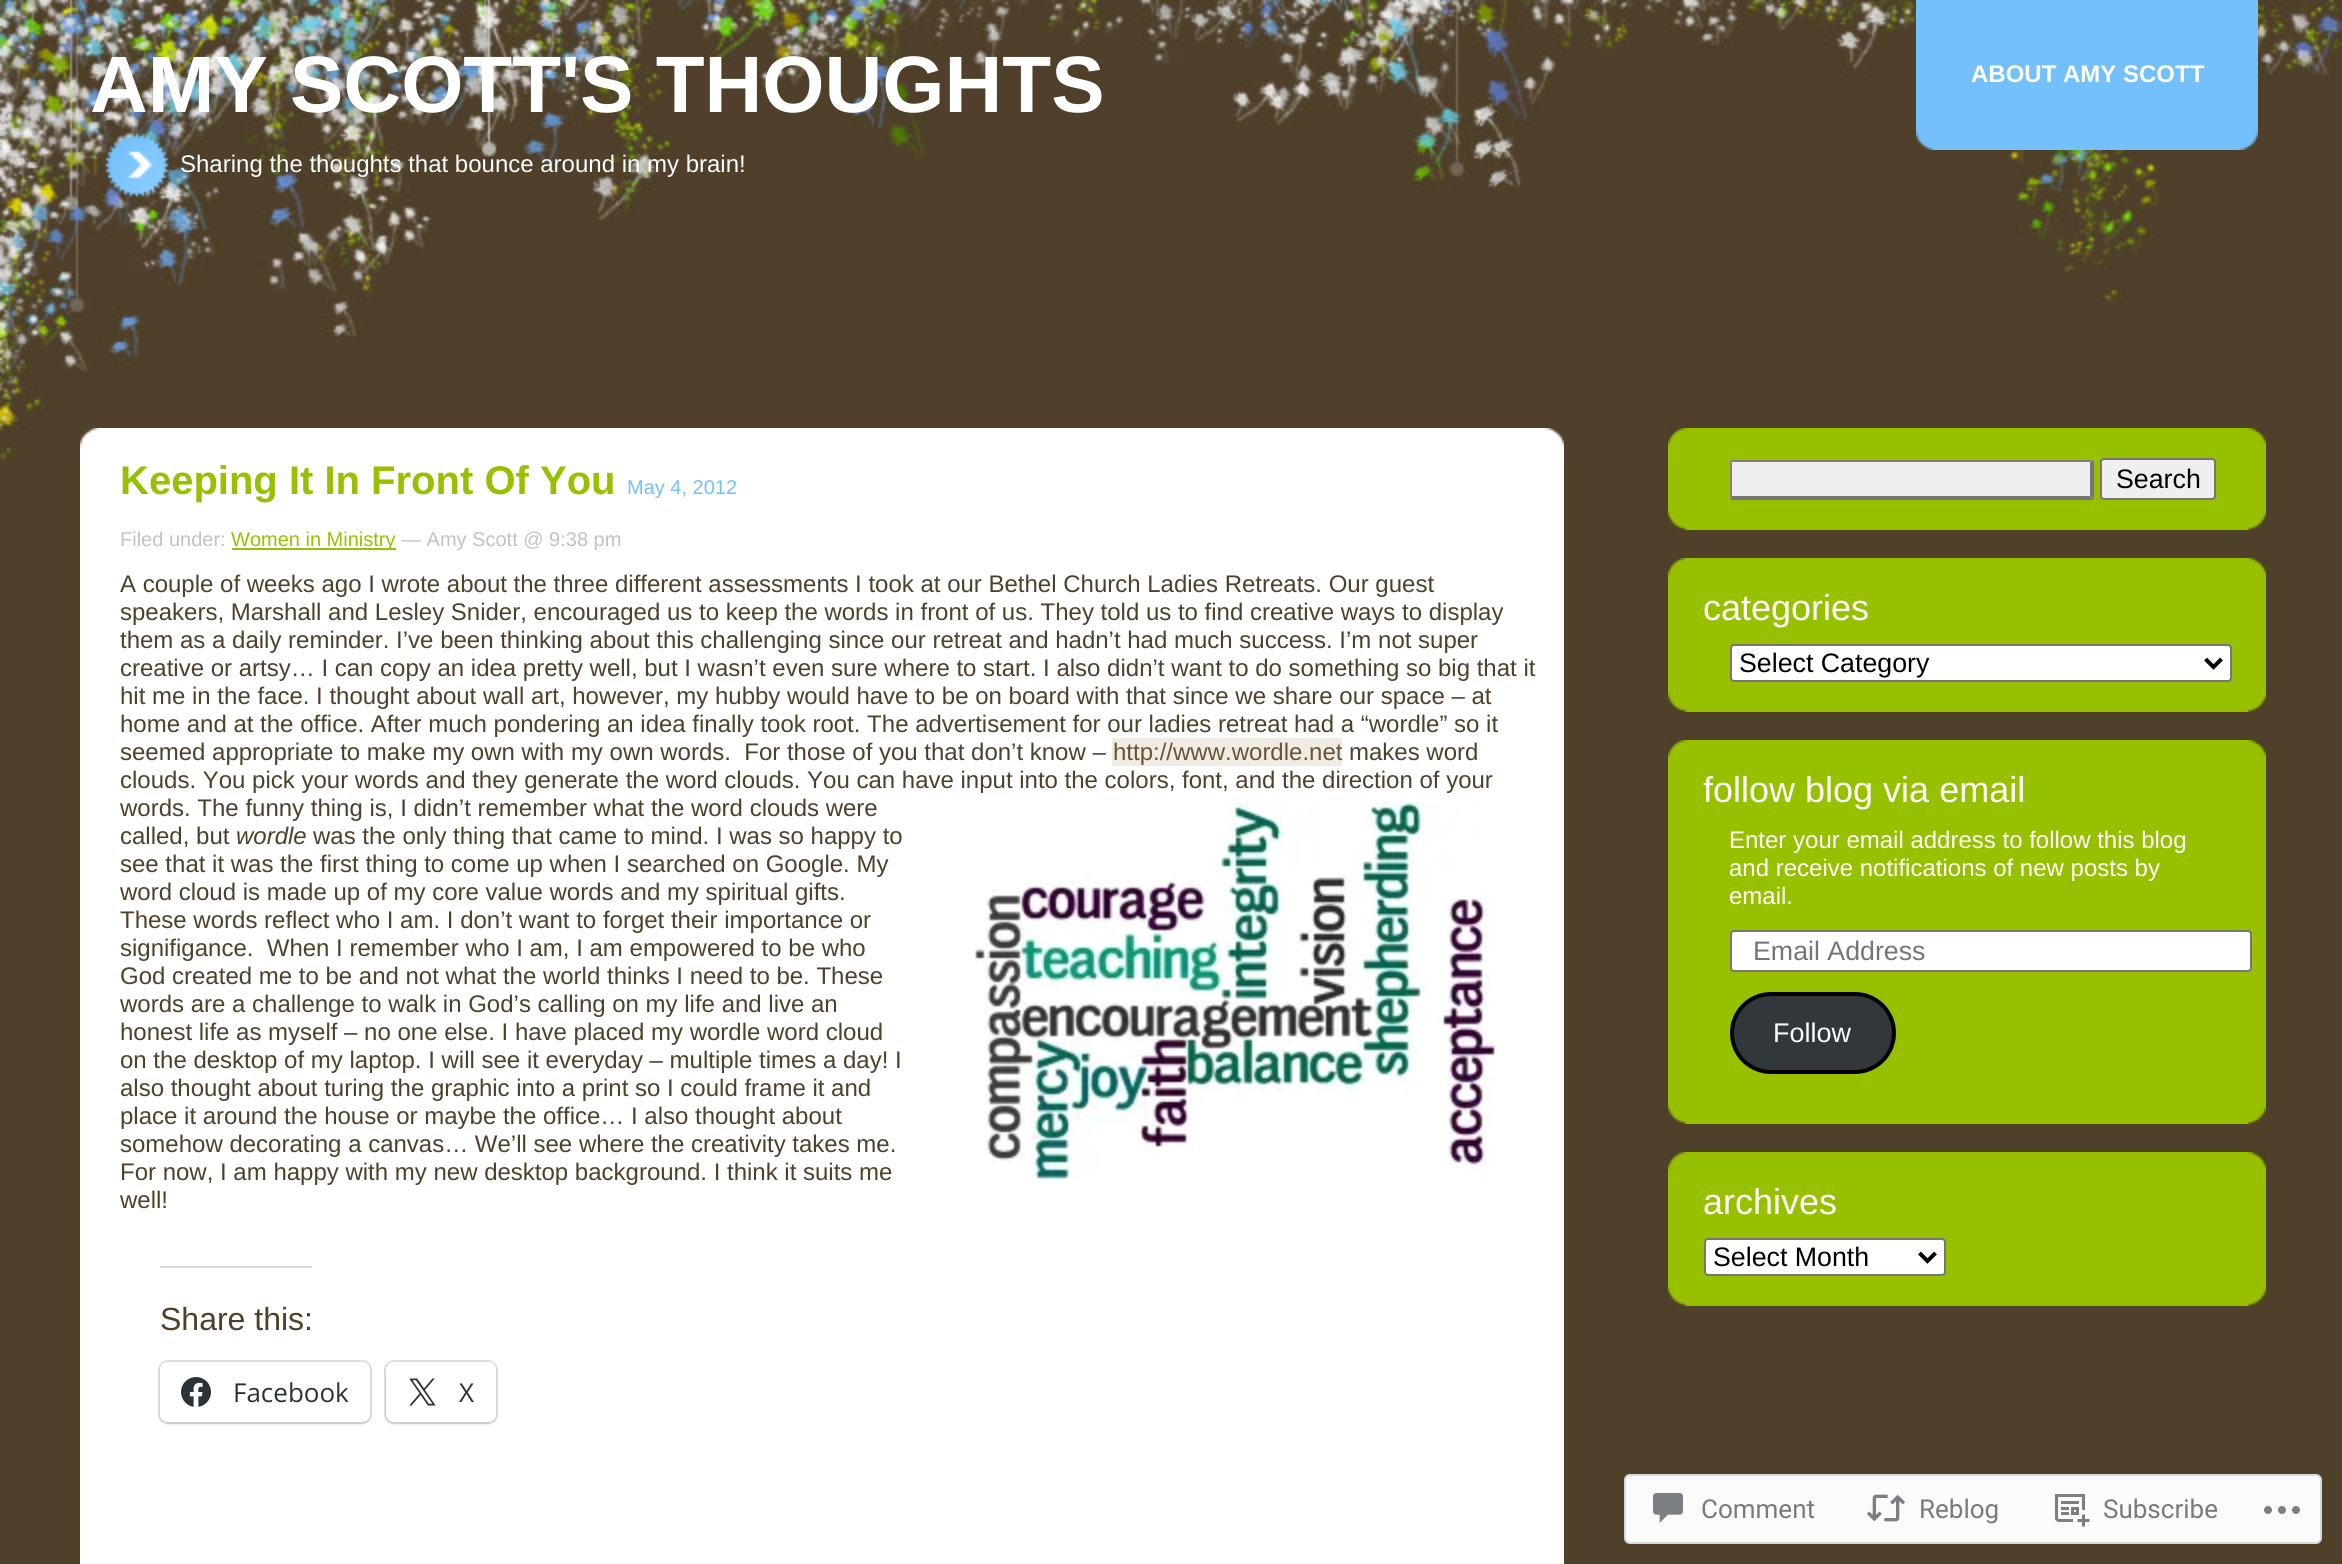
import math
import cairo

surface = cairo.ImageSurface(cairo.FORMAT_RGB24, 2342, 1564)
c = cairo.Context(surface)
options = cairo.FontOptions()
options.set_hint_metrics(cairo.HINT_METRICS_OFF)
options.set_hint_style(cairo.HINT_STYLE_NONE)
c.set_font_options(options)
c.set_miter_limit(4)
def C(code):
 c.set_source_rgb(*(v / 255 for v in bytes.fromhex(code[-6:])))
def F(family, size, italic, bold):
 c.select_font_face(family, cairo.FONT_SLANT_ITALIC if italic else cairo.FONT_SLANT_NORMAL, cairo.FONT_WEIGHT_BOLD if bold else cairo.FONT_WEIGHT_NORMAL)
 c.set_font_size(size)
def T(x, y, s):
 c.move_to(x, y)
 c.show_text(s)
def R(x, y, w, h):
 c.rectangle(x, y, w, h)
 c.fill()
def Q(x, y, w, h, r):
 c.new_sub_path()
 for i, (u, v) in enumerate([(x + w - r, y + h - r), (x + r, y + h - r), (x + r, y + r), (x + w - r, y + r)]):
  c.arc(u, v, r, i * math.pi / 2, (i + 1) * math.pi / 2)
 c.close_path()
def S(x, y, w, h, r, blur, alpha):
 c.push_group_with_content(cairo.CONTENT_ALPHA)
 c.set_operator(cairo.OPERATOR_SOURCE)
 for i in range(15, -16, -2):
  e = blur * i / 6
  if min(w, h) + 2 * e > 0:
   c.set_source_rgba(0, 0, 0, alpha * math.erfc((i - 1) / 8.5) / 2)
   Q(x - e, y - e, w + 2 * e, h + 2 * e, max(0, min(r + e + blur * .6, min(w, h) / 2 + e)))
   c.fill()
 c.mask(c.pop_group())
def I(path, x, y, w, h):
 c.save()
 c.set_source_surface(cairo.ImageSurface.create_from_png(path), x, y)
 c.rectangle(x, y, w, h)
 c.fill()
 c.restore()
C('4f402a')
c.paint()
I('1.png',0,0,2342,464)
F('Liberation Sans',80,0,1)
C('ffffff')
T(90,112,'AMY SCOTT\'S THOUGHTS')
I('2.png',1916,0,24,150)
C('74c0fa')
R(1940,0,294,150)
F('Liberation Sans',24,0,1)
C('ffffff')
T(1971,82,'ABOUT AMY SCOTT')
I('3.png',2234,0,24,150)
I('4.png',103,133,66,65)
F('Liberation Sans',24,0,0)
T(180,172,'Sharing the thoughts that bounce around in my brain!')
R(80,428,1484,1136)
I('5.png',1545,428,19,19)
I('6.png',80,428,19,20)
F('Liberation Sans',40,0,1)
C('97c000')
T(120,494,'Keeping It In Front Of You')
F('Liberation Sans',20,0,0)
C('74c0fa')
T(627,494,'May 4, 2012')
C('c2c2c2')
T(120,546,'Filed under:')
C('97c000')
R(232,548,164,2)
T(231,546,'Women in Ministry')
C('c2c2c2')
T(401,546,'— Amy Scott @ 9:38 pm')
F('Liberation Sans',24,0,0)
C('4f402a')
T(120,592,'A couple of weeks ago I wrote about the three different assessments I took at our Bethel Church Ladies Retreats. Our guest')
T(120,620,'speakers, Marshall and Lesley Snider, encouraged us to keep the words in front of us. They told us to find creative ways to display')
T(120,648,'them as a daily reminder. I’ve been thinking about this challenging since our retreat and hadn’t had much success. I’m not super')
T(120,676,'creative or artsy… I can copy an idea pretty well, but I wasn’t even sure where to start. I also didn’t want to do something so big that it')
T(120,704,'hit me in the face. I thought about wall art, however, my hubby would have to be on board with that since we share our space – at')
T(120,732,'home and at the office. After much pondering an idea finally took root. The advertisement for our ladies retreat had a “wordle” so it')
T(120,760,'seemed appropriate to make my own with my own words.  For those of you that don’t know –')
C('f2ebe1')
R(1112,738,230,28)
C('675437')
T(1113,760,'http://www.wordle.net')
C('4f402a')
T(1349,760,'makes word')
T(120,788,'clouds. You pick your words and they generate the word clouds. You can have input into the colors, font, and the direction of your')
T(120,816,'words. The funny thing is, I didn’t remember what the word clouds were')
I('7.png',975,802,522,380)
T(120,844,'called, but')
F('Liberation Sans',24,1,0)
T(236,844,'wordle')
F('Liberation Sans',24,0,0)
T(313,844,'was the only thing that came to mind. I was so happy to')
T(120,872,'see that it was the first thing to come up when I searched on Google. My')
T(120,900,'word cloud is made up of my core value words and my spiritual gifts.')
T(120,928,'These words reflect who I am. I don’t want to forget their importance or')
T(120,956,'signifigance.  When I remember who I am, I am empowered to be who')
T(120,984,'God created me to be and not what the world thinks I need to be. These')
T(120,1012,'words are a challenge to walk in God’s calling on my life and live an')
T(120,1040,'honest life as myself – no one else. I have placed my wordle word cloud')
T(120,1068,'on the desktop of my laptop. I will see it everyday – multiple times a day! I')
T(120,1096,'also thought about turing the graphic into a print so I could frame it and')
T(120,1124,'place it around the house or maybe the office… I also thought about')
T(120,1152,'somehow decorating a canvas… We’ll see where the creativity takes me.')
T(120,1180,'For now, I am happy with my new desktop background. I think it suits me')
T(120,1208,'well!')
C('dcdcde')
R(160,1266,152,2)
F('Liberation Sans',32,0,0)
C('4f402a')
T(160,1330,'Share this:')
Q(159,1361,212,62,9)
C('e0e0e0')
c.stroke()
C('000000')
S(160,1364,210,60,8,2,.12)
C('ffffff')
Q(160,1362,210,60,8)
c.fill()
I('8.png',181,1377,30,30)
F('Open Sans',26,0,0)
C('2c3338')
T(233,1402,'Facebook')
Q(385,1361,112,62,9)
C('e0e0e0')
c.stroke()
C('000000')
S(386,1364,110,60,8,2,.12)
C('ffffff')
Q(386,1362,110,60,8)
c.fill()
I('9.png',409,1378,27,28)
C('2c3338')
T(459,1402,'X')
C('97c000')
R(1668,428,598,102)
I('10.png',2247,428,19,17)
I('11.png',1668,428,19,19)
C('eeeeee')
R(1730,460,364,40)
C('828177')
c.new_path()
c.move_to(1730,460)
c.line_to(2094,460)
c.line_to(2090,462)
c.line_to(1732,462)
c.close_path()
c.fill()
C('767676')
c.new_path()
c.move_to(2094,460)
c.line_to(2094,500)
c.line_to(2090,496)
c.line_to(2090,462)
c.close_path()
c.fill()
c.new_path()
c.move_to(2094,500)
c.line_to(1730,500)
c.line_to(1732,496)
c.line_to(2090,496)
c.close_path()
c.fill()
C('828177')
c.new_path()
c.move_to(1730,500)
c.line_to(1730,460)
c.line_to(1732,462)
c.line_to(1732,496)
c.close_path()
c.fill()
C('efefef')
Q(2101,459,114,40,3)
c.fill_preserve()
C('767676')
c.stroke()
F('Liberation Sans',26.75,0,0)
C('000000')
T(2116,488,'Search')
I('12.png',2247,512,19,18)
I('13.png',1668,510,19,20)
C('97c000')
R(1668,558,598,154)
I('10.png',2247,558,19,17)
I('11.png',1668,558,19,19)
F('Liberation Sans',36,0,0)
C('ffffff')
T(1703,620,'categories')
Q(1731,645,500,36,3)
c.fill_preserve()
C('767676')
c.stroke()
c.new_path()
c.move_to(2205.5,659)
c.line_to(2213.5,667)
c.line_to(2221.5,659)
C('000000')
c.set_line_width(4)
c.stroke()
F('Liberation Sans',26.75,0,0)
T(1739,672,'Select Category')
I('12.png',2247,694,19,18)
I('13.png',1668,692,19,20)
C('97c000')
R(1668,740,598,384)
I('10.png',2247,740,19,17)
I('11.png',1668,740,19,19)
F('Liberation Sans',36,0,0)
C('ffffff')
T(1703,802,'follow blog via email')
F('Liberation Sans',24,0,0)
T(1729,848,'Enter your email address to follow this blog')
T(1729,876,'and receive notifications of new posts by')
T(1729,904,'email.')
Q(1731,931,520,40,3)
c.fill_preserve()
C('767676')
c.set_line_width(2)
c.stroke()
F('Liberation Sans',26.75,0,0)
C('757575')
T(1753,960,'Email Address')
C('32373c')
Q(1732,994,162,78,39)
c.fill_preserve()
C('000000')
c.set_line_width(4)
c.stroke()
F('Liberation Sans',27,0,0)
C('ffffff')
T(1773,1042,'Follow')
I('12.png',2247,1106,19,18)
I('13.png',1668,1104,19,20)
C('97c000')
R(1668,1152,598,154)
I('10.png',2247,1152,19,17)
I('11.png',1668,1152,19,19)
F('Liberation Sans',36,0,0)
C('ffffff')
T(1703,1214,'archives')
Q(1705,1239,240,36,3)
c.fill_preserve()
C('767676')
c.set_line_width(2)
c.stroke()
c.new_path()
c.move_to(1919.5,1253)
c.line_to(1927.5,1261)
c.line_to(1935.5,1253)
C('000000')
c.set_line_width(4)
c.stroke()
F('Liberation Sans',26.75,0,0)
T(1713,1266,'Select Month')
I('12.png',2247,1288,19,18)
I('13.png',1668,1286,19,20)
C('fbfbfb')
Q(1625,1475,696,68,5)
c.fill_preserve()
C('d9d9da')
c.set_line_width(2)
c.stroke()
I('14.png',1653,1493,30,30)
F('Roboto',26,0,0)
C('777b80')
T(1701,1518,'Comment')
I('15.png',1866,1494,40,28)
T(1919,1518,'Reblog')
I('16.png',2055,1494,35,33)
T(2103,1518,'Subscribe')
I('17.png',2264,1506,36,8)
surface.write_to_png('o.png')
